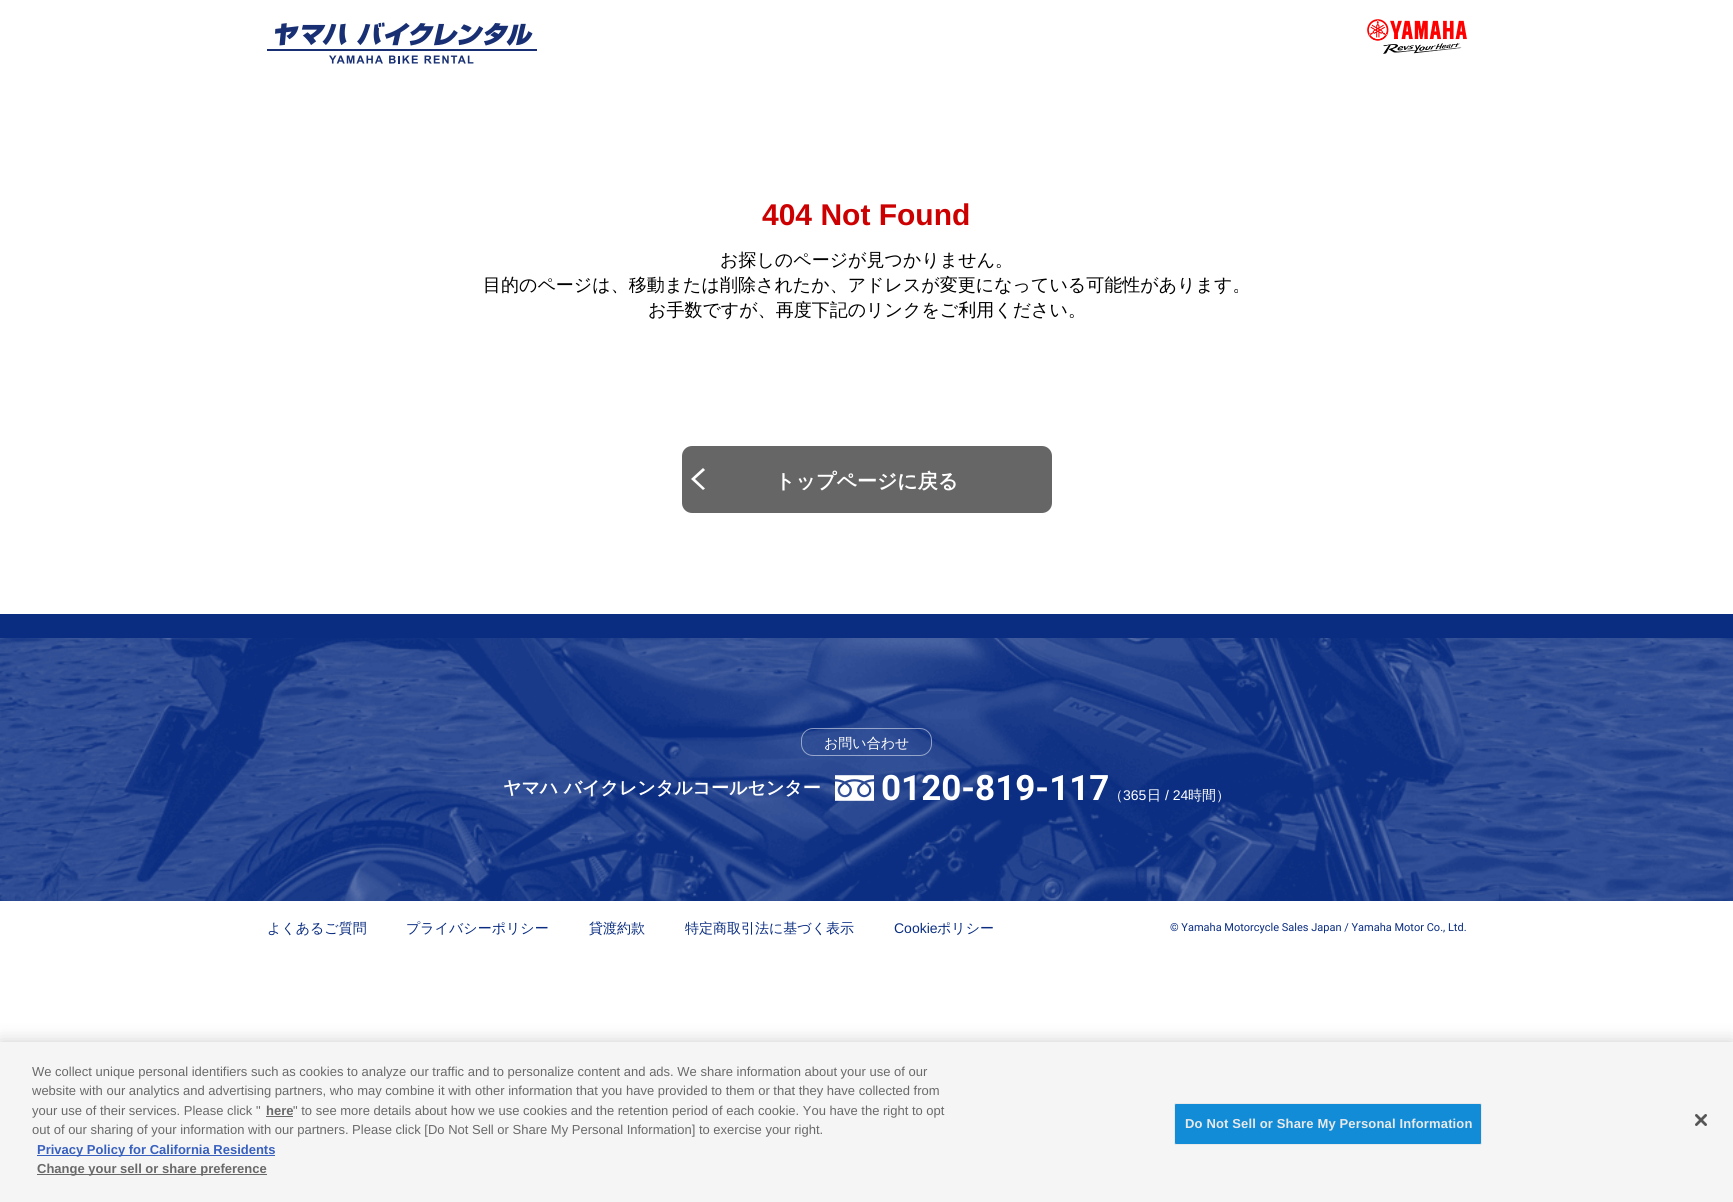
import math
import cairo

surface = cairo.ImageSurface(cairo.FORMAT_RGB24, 1733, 1202)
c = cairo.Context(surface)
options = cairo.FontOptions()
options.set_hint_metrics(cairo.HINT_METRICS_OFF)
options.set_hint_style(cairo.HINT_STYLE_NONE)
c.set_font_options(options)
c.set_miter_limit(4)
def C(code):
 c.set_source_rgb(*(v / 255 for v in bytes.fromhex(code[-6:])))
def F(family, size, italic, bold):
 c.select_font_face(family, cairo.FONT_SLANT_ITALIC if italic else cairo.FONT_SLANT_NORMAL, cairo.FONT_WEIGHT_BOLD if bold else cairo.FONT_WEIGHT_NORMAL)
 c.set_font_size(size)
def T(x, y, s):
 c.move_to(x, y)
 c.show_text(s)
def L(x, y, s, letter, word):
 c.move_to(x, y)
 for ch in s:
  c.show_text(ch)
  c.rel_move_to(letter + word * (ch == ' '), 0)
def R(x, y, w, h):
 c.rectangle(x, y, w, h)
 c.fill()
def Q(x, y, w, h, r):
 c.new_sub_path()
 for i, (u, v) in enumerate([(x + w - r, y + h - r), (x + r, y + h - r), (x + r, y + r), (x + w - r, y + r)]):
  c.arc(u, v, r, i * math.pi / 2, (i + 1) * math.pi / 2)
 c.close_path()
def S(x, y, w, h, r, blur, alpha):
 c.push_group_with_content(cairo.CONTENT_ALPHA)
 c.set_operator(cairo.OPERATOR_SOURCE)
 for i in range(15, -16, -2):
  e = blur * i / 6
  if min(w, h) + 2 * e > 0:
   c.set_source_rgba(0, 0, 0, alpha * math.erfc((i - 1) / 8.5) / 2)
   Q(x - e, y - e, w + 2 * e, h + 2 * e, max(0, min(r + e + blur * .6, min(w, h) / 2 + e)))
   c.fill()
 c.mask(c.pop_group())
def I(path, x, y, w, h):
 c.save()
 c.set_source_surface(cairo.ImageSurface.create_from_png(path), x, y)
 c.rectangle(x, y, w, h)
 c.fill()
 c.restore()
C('ffffff')
c.paint()
I('1.png',267,22,270,42)
I('2.png',1367,19,100,35)
F('Liberation Sans',30,0,1)
C('cc0000')
T(762,225,'404 Not Found')
F('WenQuanYi Zen Hei Medium',18,0,0)
C('000000')
T(720,266,'お探しのページが見つかりません。')
T(483,291,'目的のページは、移動または削除されたか、アドレスが変更になっている可能性があります。')
T(648,316,'お手数ですが、再度下記のリンクをご利用ください。')
C('666666')
Q(682,446,370,67,10)
c.fill()
C('ffffff')
c.set_fill_rule(cairo.FILL_RULE_EVEN_ODD)
c.new_path()
c.move_to(703,468)
c.line_to(705,470)
c.line_to(695,479)
c.line_to(705,488.5)
c.line_to(703,490)
c.line_to(691,479)
c.close_path()
c.fill()
F('WenQuanYi Zen Hei',20,0,1)
T(775,488,'トップページに戻る')
C('0a2d81')
R(0,614,1733,24)
I('3.png',0,638,1733,263)
Q(801.5,728.5,130,27,11.5)
c.set_source_rgba(1,1,1,0.5)
c.set_line_width(1)
c.stroke()
F('WenQuanYi Zen Hei Medium',14,0,0)
C('ffffff')
T(824,748,'お問い合わせ')
F('WenQuanYi Zen Hei',18,0,1)
T(503,794,'ヤマハ バイクレンタルコールセンター')
I('4.png',835,775,39,26)
F('Roboto',35,0,1)
T(881,800,'0120-819-117')
F('WenQuanYi Zen Hei Medium',14,0,0)
T(1109,800,'（')
F('Liberation Sans',14,0,0)
T(1123,800,'365')
F('WenQuanYi Zen Hei Medium',14,0,0)
T(1147,800,'日')
F('Liberation Sans',14,0,0)
T(1165,800,'/ 24')
F('WenQuanYi Zen Hei Medium',14,0,0)
T(1188,800,'時間）')
C('0a2d81')
T(267,933,'よくあるご質問')
T(406,933,'プライバシーポリシー')
T(589,933,'貸渡約款')
T(685,933,'特定商取引法に基づく表示')
F('Liberation Sans',14,0,0)
T(894,933,'Cookie')
F('WenQuanYi Zen Hei Medium',14,0,0)
T(937,933,'ポリシー')
F('Roboto',11,0,0)
T(1170,931,'© Yamaha Motorcycle Sales Japan / Yamaha Motor Co., Ltd.')
C('000000')
S(0,1042,1733,160,0,9,.2)
C('f5f5f5')
R(0,1042,1733,160)
F('Liberation Sans',13,0,0)
C('696969')
T(32,1076,'We collect unique personal identifiers such as cookies to analyze our traffic and to personalize content and ads. We share information about your use of our')
T(32,1095,'website with our analytics and advertising partners, who may combine it with other information that you have provided to them or that they have collected from')
T(32,1115,'your use of their services. Please click "')
F('Liberation Sans',13,0,1)
T(266,1115,'here')
R(266,1116,27,1)
F('Liberation Sans',13,0,0)
T(293,1115,'" to see more details about how we use cookies and the retention period of each cookie. You have the right to opt')
T(32,1134,'out of our sharing of your information with our partners. Please click [Do Not Sell or Share My Personal Information] to exercise your right.')
C('3860be')
R(37,1155,238,1)
F('Liberation Sans',13,0,1)
T(37,1154,'Privacy Policy for California Residents')
C('696969')
R(37,1174,230,1)
T(37,1173,'Change your sell or share preference')
C('128cd6')
Q(1174.5,1103.5,307,41,1.5)
c.fill_preserve()
C('e9e9e9')
c.stroke()
L(1185,1128,'Do Not Sell or Share My Personal Information',.15,0)
I('5.png',1695,1114,12,12)
surface.write_to_png('o.png')
